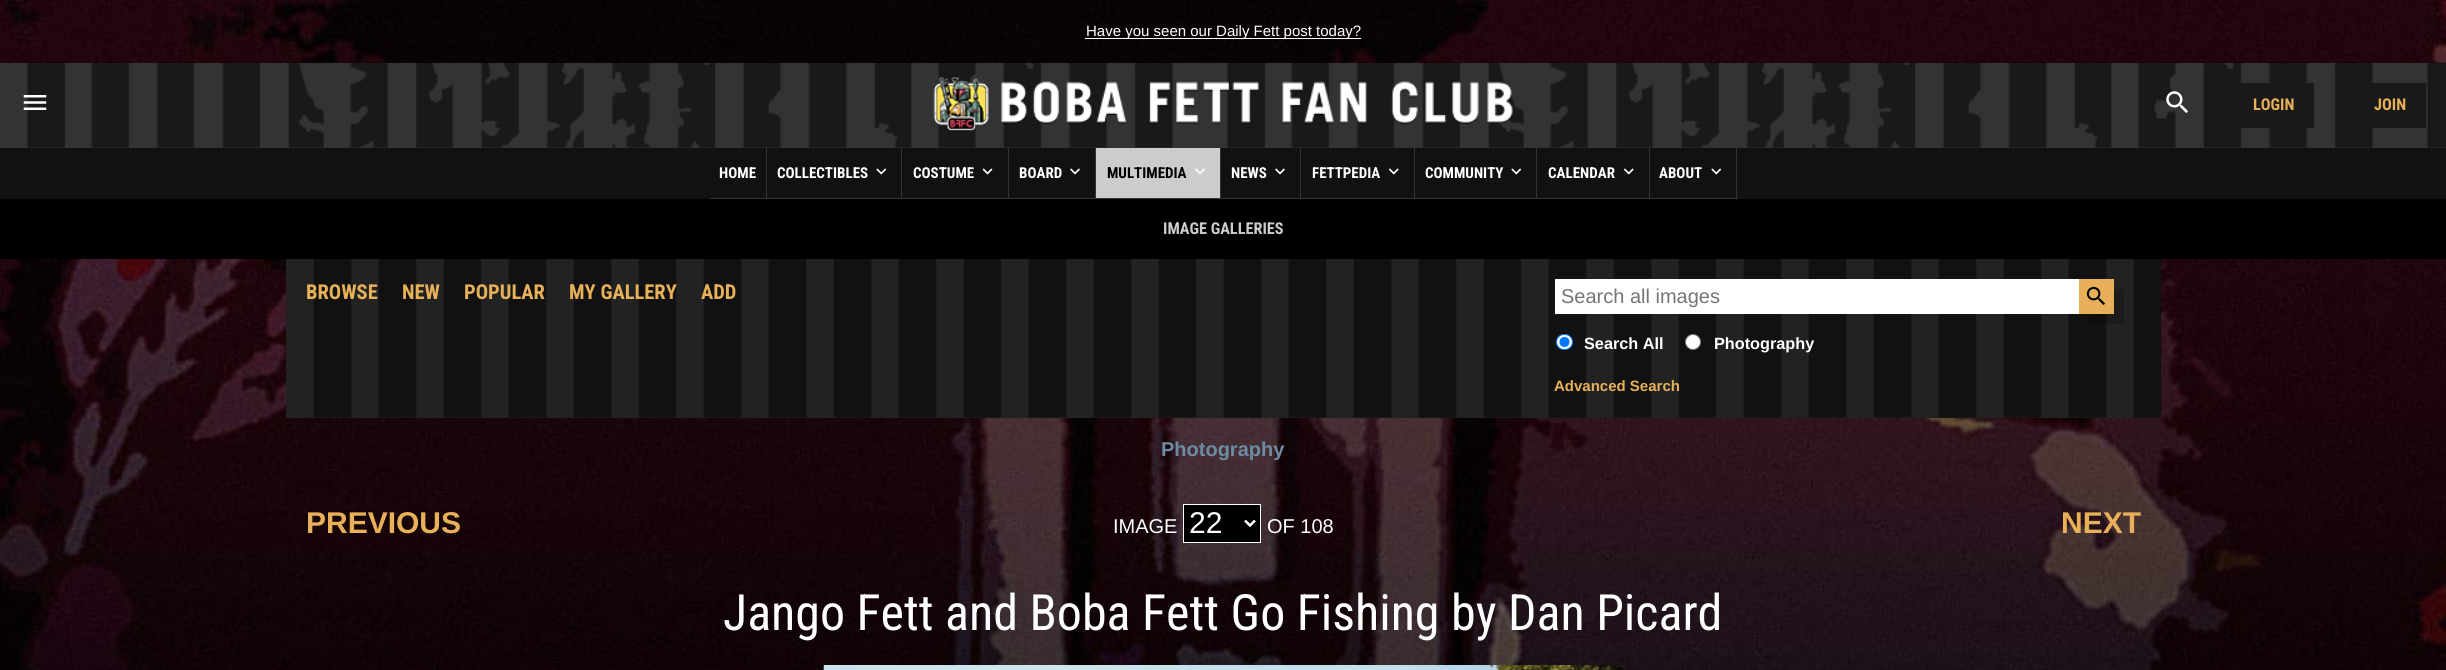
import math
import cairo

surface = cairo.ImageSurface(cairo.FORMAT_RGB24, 2446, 670)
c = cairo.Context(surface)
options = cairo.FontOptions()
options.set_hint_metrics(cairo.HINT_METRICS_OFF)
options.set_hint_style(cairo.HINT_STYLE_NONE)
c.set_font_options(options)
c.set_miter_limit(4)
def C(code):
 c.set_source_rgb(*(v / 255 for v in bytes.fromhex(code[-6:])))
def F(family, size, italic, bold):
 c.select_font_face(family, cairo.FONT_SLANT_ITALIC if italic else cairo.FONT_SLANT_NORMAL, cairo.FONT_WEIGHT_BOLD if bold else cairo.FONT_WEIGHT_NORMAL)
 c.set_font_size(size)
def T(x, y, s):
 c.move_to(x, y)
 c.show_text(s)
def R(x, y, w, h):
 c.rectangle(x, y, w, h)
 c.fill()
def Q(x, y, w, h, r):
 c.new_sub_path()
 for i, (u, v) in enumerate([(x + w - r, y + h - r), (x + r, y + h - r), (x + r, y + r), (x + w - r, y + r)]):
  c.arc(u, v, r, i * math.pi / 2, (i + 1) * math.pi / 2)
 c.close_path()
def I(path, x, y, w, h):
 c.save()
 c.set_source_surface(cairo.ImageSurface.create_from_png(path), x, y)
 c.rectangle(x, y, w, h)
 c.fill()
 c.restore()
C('ffffff')
c.paint()
I('1.png',0,0,2446,670)
C('ffffff')
R(1085,38,276,1)
F('Liberation Sans',15,0,0)
T(1086,36,'Have you seen our Daily Fett post today?')
C('333333')
R(0,63,2446,85)
I('2.png',27,62,2419,86)
I('3.png',23,95,24,15)
I('4.png',933,77,580,54)
I('5.png',2166,91,22,22)
C('191919')
R(2240,83,74,45)
F('Roboto Condensed',16.25,0,1)
C('e8b058')
T(2253,110,'LOGIN')
C('191919')
R(2372,83,54,45)
C('e8b058')
T(2374,110,'JOIN')
C('111111')
R(0,148,2446,51)
C('333333')
R(766,148,1,51)
R(709,198,59,1)
F('Roboto Condensed',15,0,1)
C('ffffff')
T(719,178,'HOME')
C('333333')
R(901,148,1,51)
R(768,198,135,1)
C('ffffff')
T(777,178,'COLLECTIBLES')
I('6.png',876,168,11,7)
C('333333')
R(1008,148,1,51)
R(903,198,106,1)
C('ffffff')
T(913,178,'COSTUME')
I('7.png',982,168,11,7)
C('333333')
R(1095,148,1,51)
R(1009,198,87,1)
C('ffffff')
T(1019,178,'BOARD')
I('8.png',1070,168,10,7)
C('333333')
R(1220,148,1,51)
R(1096,198,125,1)
C('cccccc')
R(1096,148,124,50)
C('000000')
T(1107,178,'MULTIMEDIA')
I('9.png',1195,168,10,7)
C('333333')
R(1300,148,1,51)
R(1221,198,80,1)
C('ffffff')
T(1231,178,'NEWS')
I('8.png',1275,168,10,7)
C('333333')
R(1414,148,1,51)
R(1301,198,114,1)
C('ffffff')
T(1312,178,'FETTPEDIA')
I('10.png',1388,168,11,7)
C('333333')
R(1536,148,1,51)
R(1415,198,123,1)
C('ffffff')
T(1425,178,'COMMUNITY')
I('6.png',1511,168,11,7)
C('333333')
R(1649,148,1,51)
R(1538,198,112,1)
C('ffffff')
T(1548,178,'CALENDAR')
I('10.png',1623,168,11,7)
C('333333')
R(1736,148,1,51)
R(1650,198,88,1)
C('ffffff')
T(1659,178,'ABOUT')
I('6.png',1711,168,11,7)
C('000000')
R(0,199,2446,60)
F('Roboto Condensed',16.25,0,1)
C('cccccc')
T(1163,234,'IMAGE GALLERIES')
C('222222')
R(286,259,1875,159)
I('11.png',313,259,1849,159)
F('Roboto Condensed',20.5,0,1)
C('e8b058')
T(306,299,'BROWSE')
T(402,299,'NEW')
T(464,299,'POPULAR')
T(569,299,'MY GALLERY')
T(701,299,'ADD')
C('ffffff')
R(1555,279,524,35)
F('Liberation Sans',20,0,0)
C('757575')
T(1561,303,'Search all images')
c.set_source_rgba(0,0,0,0.2)
c.new_path()
c.move_to(2089,314)
c.line_to(2089,324)
c.line_to(2124,324)
c.line_to(2124,289)
c.line_to(2114,289)
c.line_to(2114,314)
c.close_path()
c.fill()
C('e8b058')
R(2079,279,35,35)
I('12.png',2086,286,19,19)
C('ffffff')
Q(1556.5,334.5,16,15,7.5)
c.fill_preserve()
C('0075ff')
c.set_line_width(1)
c.stroke()
c.arc(1564.5,342,5,0,2 * math.pi)
c.fill()
F('Liberation Sans',16.25,0,1)
C('ffffff')
T(1584,349,'Search All')
c.new_path()
c.arc(1693,342,7.5,0,2 * math.pi)
c.fill_preserve()
C('767676')
c.stroke()
C('ffffff')
T(1714,349,'Photography')
F('Liberation Sans',15,0,1)
C('e8b058')
T(1554,391,'Advanced Search')
F('Liberation Sans',20,0,1)
C('6d8ca4')
T(1161,456,'Photography')
F('Liberation Sans',30,0,1)
C('e8b058')
T(306,533,'PREVIOUS')
F('Liberation Sans',20,0,0)
C('ffffff')
T(1113,533,'IMAGE')
C('000000')
c.rectangle(1183.5,504.5,77,38)
c.fill_preserve()
C('ffffff')
c.stroke()
c.new_path()
c.move_to(1245,520.5)
c.line_to(1250,525.5)
c.line_to(1255,520.5)
c.set_line_width(2.5)
c.stroke()
F('Liberation Sans',30,0,0)
T(1189,533,'22')
F('Liberation Sans',20,0,0)
T(1267,533,'OF 108')
F('Liberation Sans',30,0,1)
C('e8b058')
T(2061,533,'NEXT')
F('Roboto Condensed',50,0,0)
C('ffffff')
T(723,630,'Jango Fett and Boba Fett Go Fishing by Dan Picard')
I('13.png',823,665,801,5)
surface.write_to_png('o.png')
